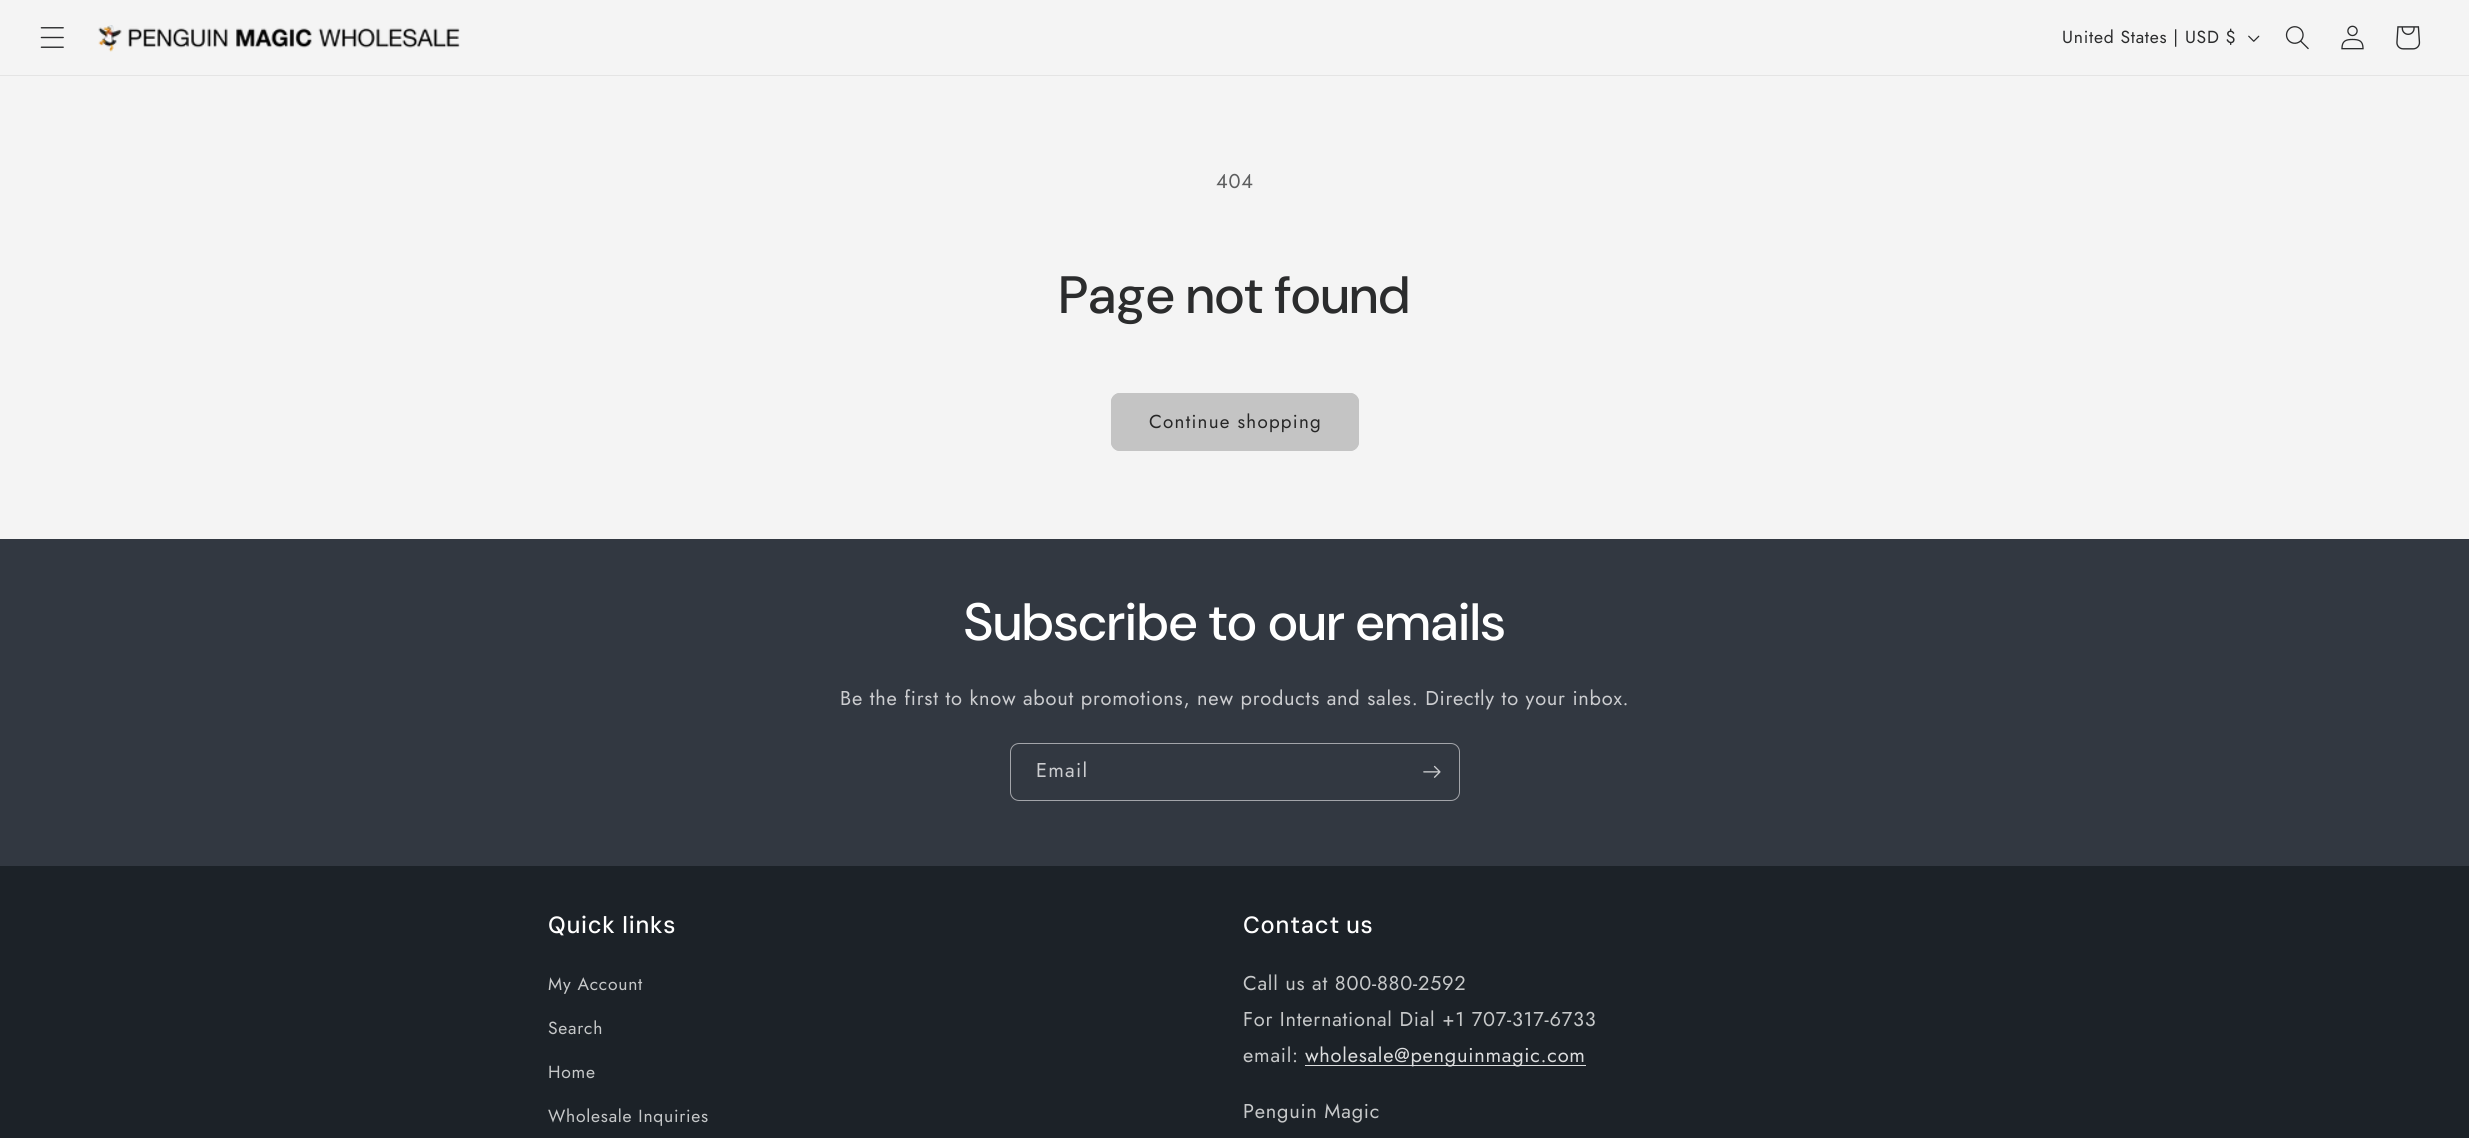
import math
import cairo

surface = cairo.ImageSurface(cairo.FORMAT_RGB24, 2469, 1138)
c = cairo.Context(surface)
options = cairo.FontOptions()
options.set_hint_metrics(cairo.HINT_METRICS_OFF)
options.set_hint_style(cairo.HINT_STYLE_NONE)
c.set_font_options(options)
c.set_miter_limit(4)
def C(code):
 c.set_source_rgb(*(v / 255 for v in bytes.fromhex(code[-6:])))
def F(family, size, italic, bold):
 c.select_font_face(family, cairo.FONT_SLANT_ITALIC if italic else cairo.FONT_SLANT_NORMAL, cairo.FONT_WEIGHT_BOLD if bold else cairo.FONT_WEIGHT_NORMAL)
 c.set_font_size(size)
def L(x, y, s, letter, word):
 c.move_to(x, y)
 for ch in s:
  c.show_text(ch)
  c.rel_move_to(letter + word * (ch == ' '), 0)
def R(x, y, w, h):
 c.rectangle(x, y, w, h)
 c.fill()
def Q(x, y, w, h, r):
 c.new_sub_path()
 for i, (u, v) in enumerate([(x + w - r, y + h - r), (x + r, y + h - r), (x + r, y + r), (x + w - r, y + r)]):
  c.arc(u, v, r, i * math.pi / 2, (i + 1) * math.pi / 2)
 c.close_path()
def I(path, x, y, w, h):
 c.save()
 c.set_source_surface(cairo.ImageSurface.create_from_png(path), x, y)
 c.rectangle(x, y, w, h)
 c.fill()
 c.restore()
C('f4f4f4')
c.paint()
C('e4e4e4')
R(0,75,2469,1)
I('1.png',40,27,24,21)
I('2.png',98,25,362,27)
F('Jost',17.5,0,0)
C('2b2c2d')
L(2062,43,'United States | USD $',.75,0)
I('3.png',2248,35,12,7)
I('4.png',2285,26,24,24)
I('5.png',2341,25,23,25)
I('6.png',2396,26,25,24)
F('Jost',20,0,0)
C('5d5e5f')
L(1216,188,'404',.75,0)
F('DM Sans Medium',52.5,0,0)
C('2b2c2d')
L(1059,313,'Page not found',.75,0)
C('c4c4c4')
Q(1111,393,248,58,9)
c.fill()
Q(1111.5,393.5,247,57,8.5)
c.set_line_width(1)
c.stroke()
F('Jost',18.75,0,0)
C('262626')
L(1149,428,'Continue shopping',1.25,0)
C('323841')
R(0,539,2469,327)
F('DM Sans Medium',52.5,0,0)
C('ffffff')
L(964,640,'Subscribe to our emails',.75,0)
F('Jost',20,0,0)
C('cccdd0')
L(840,705,'Be the first to know about promotions, new products and sales. Directly to your inbox.',.75,0)
Q(1010.5,743.5,449,57,8.5)
C('a3a5aa')
c.stroke()
C('cccdd0')
L(1036,777,'Email',1.25,0)
I('7.png',1423,765,18,13)
C('1c2228')
R(0,866,2469,272)
F('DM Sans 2 Medium',23.5,0,0)
C('ffffff')
L(548,933,'Quick links',.75,0)
F('Jost',17.5,0,0)
C('c6c8c9')
L(548,990,'My Account',.75,0)
L(548,1034,'Search',.75,0)
L(548,1078,'Home',.75,0)
L(548,1122,'Wholesale Inquiries',.75,0)
F('DM Sans 2 Medium',23.5,0,0)
C('ffffff')
L(1243,933,'Contact us',.75,-1)
F('Jost',20,0,0)
C('c6c8c9')
L(1243,990,'Call us at 800-880-2592',.75,0)
L(1243,1026,'For International Dial +1 707-317-6733',.75,0)
L(1243,1062,'email:',.75,0)
C('dddedf')
R(1305,1065,281,1)
L(1305,1062,'wholesale@penguinmagic.com',.75,0)
C('c6c8c9')
L(1243,1118,'Penguin Magic',.75,0)
surface.write_to_png('o.png')
